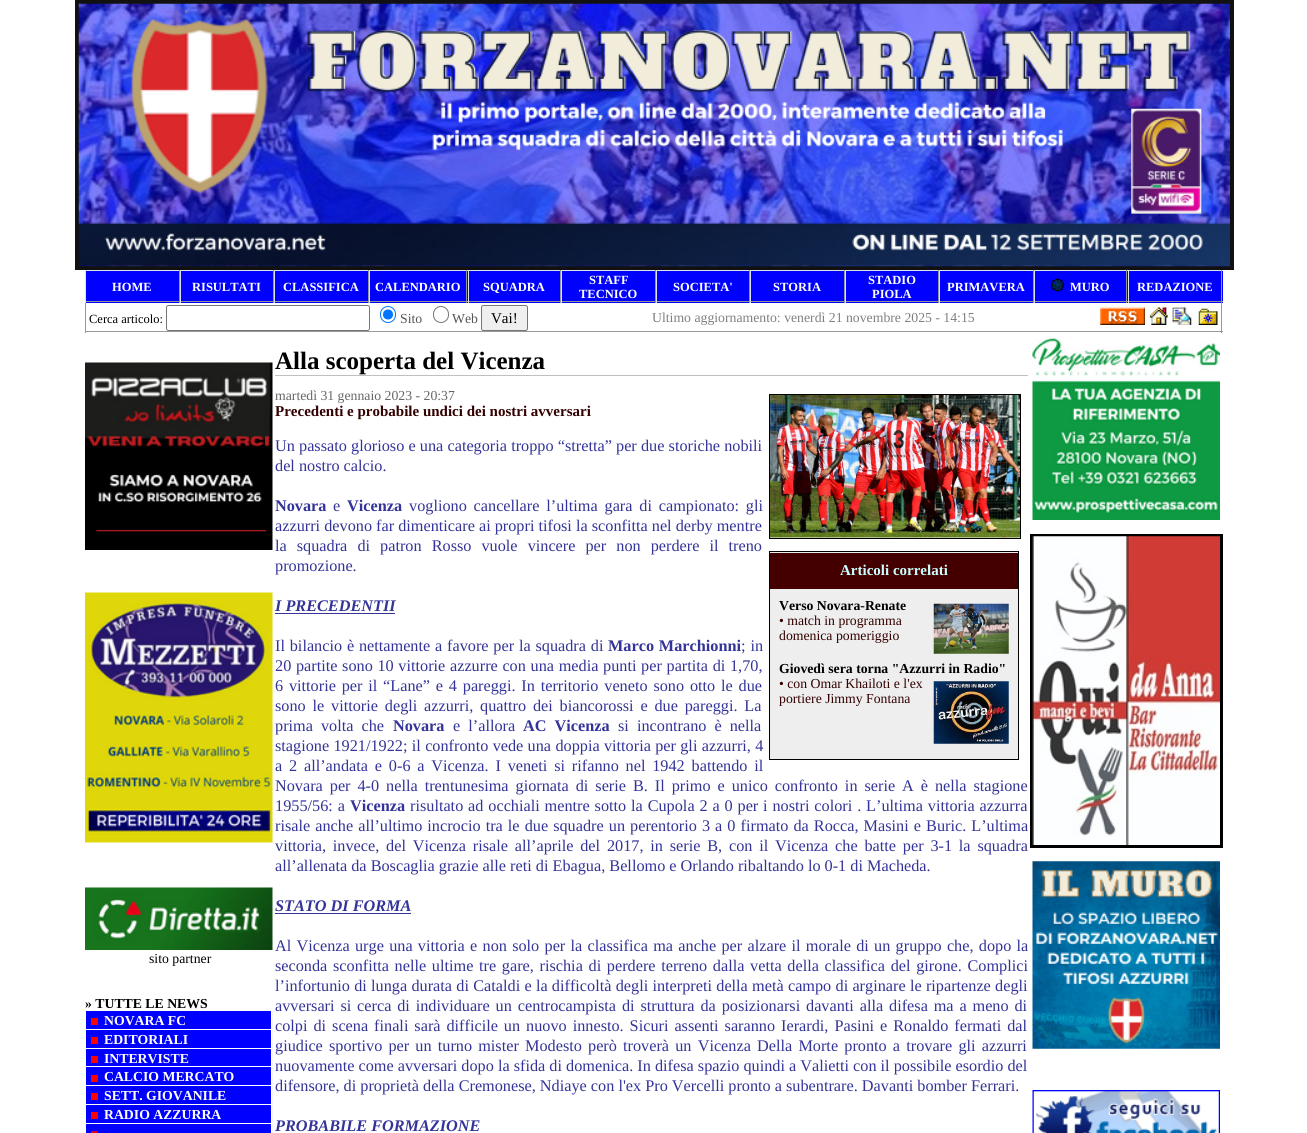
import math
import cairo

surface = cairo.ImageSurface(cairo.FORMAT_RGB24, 1307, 1133)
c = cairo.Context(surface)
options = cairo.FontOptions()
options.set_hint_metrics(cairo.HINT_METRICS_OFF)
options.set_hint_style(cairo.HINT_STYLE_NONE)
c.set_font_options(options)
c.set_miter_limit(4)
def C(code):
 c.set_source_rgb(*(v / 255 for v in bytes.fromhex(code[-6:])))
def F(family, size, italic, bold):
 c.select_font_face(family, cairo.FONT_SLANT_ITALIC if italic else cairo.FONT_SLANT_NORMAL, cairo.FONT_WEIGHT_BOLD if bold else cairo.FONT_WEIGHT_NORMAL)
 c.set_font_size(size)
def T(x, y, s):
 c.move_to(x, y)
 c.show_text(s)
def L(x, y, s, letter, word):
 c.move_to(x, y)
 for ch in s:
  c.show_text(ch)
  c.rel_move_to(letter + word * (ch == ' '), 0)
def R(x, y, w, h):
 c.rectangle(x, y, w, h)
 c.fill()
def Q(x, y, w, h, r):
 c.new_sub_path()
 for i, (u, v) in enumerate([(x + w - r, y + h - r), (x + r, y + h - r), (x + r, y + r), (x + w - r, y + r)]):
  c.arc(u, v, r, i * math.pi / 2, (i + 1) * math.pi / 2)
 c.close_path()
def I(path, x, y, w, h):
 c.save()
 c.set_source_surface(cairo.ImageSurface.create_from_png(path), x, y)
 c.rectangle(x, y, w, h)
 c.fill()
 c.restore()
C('ffffff')
c.paint()
C('111111')
R(75,0,1159,4)
R(1230,0,4,270)
R(75,266,1159,4)
R(75,0,4,270)
I('1.png',78,3,1152,264)
C('0000ff')
R(86,271,93,32)
C('dee3e7')
R(85,270,1138,1)
C('94979a')
R(179,270,1,33)
R(85,301,95,1)
C('dee3e7')
R(85,270,1,33)
F('Liberation Serif',12.5,0,1)
C('ffffff')
T(112,291,'HOME')
C('0000ff')
R(181,271,92,32)
C('94979a')
R(273,270,1,33)
R(180,301,94,1)
C('dee3e7')
R(180,270,1,33)
C('ffffff')
T(192,291,'RISULTATI')
C('0000ff')
R(275,271,93,32)
C('94979a')
R(368,270,1,33)
R(274,301,95,1)
C('dee3e7')
R(274,270,1,33)
C('ffffff')
T(283,291,'CLASSIFICA')
C('0000ff')
R(370,271,98,32)
C('94979a')
R(466,270,1,33)
R(369,301,99,1)
C('dee3e7')
R(369,270,1,33)
C('ffffff')
T(375,291,'CALENDARIO')
C('0000ff')
R(469,271,91,32)
C('94979a')
R(560,270,1,33)
R(468,301,93,1)
C('dee3e7')
R(468,270,1,33)
C('ffffff')
T(483,291,'SQUADRA')
C('0000ff')
R(562,271,93,32)
C('94979a')
R(655,270,1,33)
R(561,301,95,1)
C('dee3e7')
R(561,270,1,33)
C('ffffff')
T(589,284,'STAFF')
T(579,298,'TECNICO')
C('0000ff')
R(657,271,92,32)
C('94979a')
R(749,270,1,33)
R(656,301,94,1)
C('dee3e7')
R(656,270,1,33)
C('ffffff')
T(673,291,'SOCIETA\'')
C('0000ff')
R(751,271,93,32)
C('94979a')
R(844,270,1,33)
R(750,301,95,1)
C('dee3e7')
R(750,270,1,33)
C('ffffff')
T(773,291,'STORIA')
C('0000ff')
R(846,271,92,32)
C('94979a')
R(938,270,1,33)
R(845,301,94,1)
C('dee3e7')
R(845,270,1,33)
C('ffffff')
T(868,284,'STADIO')
T(872,298,'PIOLA')
C('0000ff')
R(940,271,93,32)
C('94979a')
R(1033,270,1,33)
R(939,301,95,1)
C('dee3e7')
R(939,270,1,33)
C('ffffff')
T(947,291,'PRIMAVERA')
C('0000ff')
R(1035,271,93,32)
C('94979a')
R(1126,270,1,33)
R(1034,301,94,1)
C('dee3e7')
R(1034,270,1,33)
I('2.png',1051,278,13,14)
C('ffffff')
T(1070,291,'MURO')
C('0000ff')
R(1129,271,94,32)
C('94979a')
R(1221,270,1,33)
R(1128,301,95,1)
C('dee3e7')
R(1128,270,1,33)
C('ffffff')
T(1137,291,'REDAZIONE')
C('999999')
R(1221,303,1,30)
R(85,331,1138,1)
R(85,303,1,30)
F('Liberation Serif',12.5,0,0)
C('000000')
T(89,323,'Cerca articolo:')
Q(166.5,305.5,203,25,2)
C('767676')
c.set_line_width(1)
c.stroke()
Q(380.5,306.5,15,16,7.5)
C('0075ff')
c.stroke()
c.arc(388,314.5,5,0,2 * math.pi)
c.fill()
F('Liberation Serif',13.75,0,0)
C('555555')
T(400,323,'Sito')
Q(433.5,306.5,15,16,7.5)
C('767676')
c.stroke()
C('555555')
T(452,323,'Web')
C('efefef')
Q(481.5,305.5,46,25,2)
c.fill_preserve()
C('767676')
c.stroke()
F('Liberation Serif',15,0,0)
C('000000')
T(491,323,'Vai!')
F('Liberation Serif',13.75,0,0)
C('808080')
T(652,322,'Ultimo aggiornamento: venerdì 21 novembre 2025 - 14:15')
I('3.png',1100,307,45,18)
I('4.png',1149,307,19,18)
I('5.png',1172,307,20,18)
I('6.png',1198,308,20,17)
I('7.png',85,362,188,188)
I('8.png',85,592,188,251)
I('9.png',85,887,188,63)
C('000000')
T(149,963,'sito partner')
F('Liberation Serif',13.75,0,1)
T(85,1008,'» TUTTE LE NEWS')
C('f6f6f6')
R(272,1011,1,122)
C('0000ff')
R(86,1011,185,18)
C('ff0000')
R(91,1018,7,7)
C('ffffff')
T(104,1025,'NOVARA FC')
C('0000ff')
R(86,1030,185,18)
C('ff0000')
R(91,1037,7,7)
C('ffffff')
T(104,1044,'EDITORIALI')
C('0000ff')
R(86,1049,185,36)
C('ffffff')
R(86,1066,185,1)
C('ff0000')
R(91,1056,7,7)
C('ffffff')
T(104,1063,'INTERVISTE')
C('ff0000')
R(91,1075,7,7)
C('ffffff')
T(104,1081,'CALCIO MERCATO')
C('0000ff')
R(86,1086,185,18)
C('ff0000')
R(91,1093,7,7)
C('ffffff')
T(104,1100,'SETT. GIOVANILE')
C('0000ff')
R(86,1105,185,18)
C('ff0000')
R(91,1112,7,7)
C('ffffff')
T(104,1119,'RADIO AZZURRA')
C('0000ff')
R(86,1124,185,9)
I('10.png',91,1131,7,2)
F('Liberation Serif',25,0,1)
C('000000')
T(275,369,'Alla scoperta del Vicenza')
C('c0c0c0')
R(275,375,753,1)
F('Liberation Serif',13.75,0,0)
C('666666')
T(275,400,'martedì 31 gennaio 2023 - 20:37')
F('Liberation Serif',15,0,1)
C('330000')
T(275,416,'Precedenti e probabile undici dei nostri avversari')
F('Liberation Serif',16.25,0,0)
C('333399')
L(275,451,'Un passato glorioso e una categoria troppo “stretta” per due storiche nobili',0,.1)
T(275,471,'del nostro calcio.')
F('Liberation Serif',16.25,0,1)
T(275,511,'Novara')
F('Liberation Serif',16.25,0,0)
T(333,511,'e')
F('Liberation Serif',16.25,0,1)
T(347,511,'Vicenza')
F('Liberation Serif',16.25,0,0)
L(409,511,'vogliono cancellare l’ultima gara di campionato: gli',0,2.75)
T(275,531,'azzurri devono far dimenticare ai propri tifosi la sconfitta nel derby mentre')
L(275,551,'la squadra di patron Rosso vuole vincere per non perdere il treno',0,6)
T(275,571,'promozione.')
F('Liberation Serif',16.25,1,1)
T(275,611,'I PRECEDENTII')
R(275,613,120,1)
c.rectangle(769.5,394.5,251,144)
C('000000')
c.stroke()
I('11.png',770,395,250,143)
C('eeeeee')
c.rectangle(769.5,551.5,249,208)
c.fill_preserve()
C('000000')
c.stroke()
C('440000')
R(770,553,248,36)
F('Liberation Serif',15,0,1)
C('ccffff')
T(840,575,'Articoli correlati')
F('Liberation Serif',13.75,0,1)
C('000000')
T(779,610,'Verso Novara-Renate')
I('12.png',933,603,76,51)
F('Liberation Serif',13.75,0,0)
C('330000')
T(779,625,'• match in programma')
T(779,640,'domenica pomeriggio')
F('Liberation Serif',13.75,0,1)
C('000000')
T(779,673,'Giovedì sera torna "Azzurri in Radio"')
F('Liberation Serif',13.75,0,0)
C('330000')
T(779,688,'• con Omar Khailoti e l\'ex')
I('13.png',933,681,76,63)
T(779,703,'portiere Jimmy Fontana')
F('Liberation Serif',16.25,0,0)
C('333399')
L(275,651,'Il bilancio è nettamente a favore per la squadra di',0,.75)
F('Liberation Serif',16.25,0,1)
L(608,651,'Marco Marchionni',0,.75)
F('Liberation Serif',16.25,0,0)
L(741,651,'; in',0,1)
L(275,671,'20 partite sono 10 vittorie azzurre con una media punti per partita di 1,70,',0,.6)
L(275,691,'6 vittorie per il “Lane” e 4 pareggi. In territorio veneto sono otto le due',0,1.75)
L(275,711,'sono le vittorie degli azzurri, quattro dei biancorossi e due pareggi. La',0,2.75)
L(275,731,'prima volta che',0,4)
F('Liberation Serif',16.25,0,1)
T(393,731,'Novara')
F('Liberation Serif',16.25,0,0)
L(453,731,'e l’allora',0,4)
F('Liberation Serif',16.25,0,1)
L(523,731,'AC Vicenza',0,4)
F('Liberation Serif',16.25,0,0)
L(618,731,'si incontrano è nella',0,4)
L(275,751,'stagione 1921/1922; il confronto vede una doppia vittoria per gli azzurri, 4',0,.25)
L(275,771,'a 2 all’andata e 0-6 a Vicenza. I veneti si rifanno nel 1942 battendo il',0,2.75)
L(275,791,'Novara per 4-0 nella trentunesima giornata di serie B. Il primo e unico confronto in serie A è nella stagione',0,2.9)
L(275,811,'1955/56: a',0,.8)
F('Liberation Serif',16.25,0,1)
T(350,811,'Vicenza')
F('Liberation Serif',16.25,0,0)
L(410,811,'risultato ad occhiali mentre sotto la Cupola 2 a 0 per i nostri colori . L’ultima vittoria azzurra',0,.8)
L(275,831,'risale anche all’ultimo incrocio tra le due squadre un perentorio 3 a 0 firmato da Rocca, Masini e Buric. L’ultima',0,1)
L(275,851,'vittoria, invece, del Vicenza risale all’aprile del 2017, in serie B, con il Vicenza che batte per 3-1 la squadra',0,2.75)
T(275,871,'all’allenata da Boscaglia grazie alle reti di Ebagua, Bellomo e Orlando ribaltando lo 0-1 di Macheda.')
F('Liberation Serif',16.25,1,1)
T(275,911,'STATO DI FORMA')
R(275,913,136,1)
F('Liberation Serif',16.25,0,0)
L(275,951,'Al Vicenza urge una vittoria e non solo per la classifica ma anche per alzare il morale di un gruppo che, dopo la',0,1.2)
L(275,971,'seconda sconfitta nelle ultime tre gare, rischia di perdere terreno dalla vetta della classifica del girone. Complici',0,1.6)
L(275,991,'l’infortunio di lunga durata di Cataldi e la difficoltà degli interpreti della metà campo di arginare le ripartenze degli',0,.2)
L(275,1011,'avversari si cerca di individuare un centrocampista di struttura da posizionarsi davanti alla difesa ma a meno di',0,1.8)
L(275,1031,'colpi di scena finali sarà difficile un nuovo innesto. Sicuri assenti saranno Ierardi, Pasini e Ronaldo fermati dal',0,1.9)
L(275,1051,'giudice sportivo per un turno mister Modesto però troverà un Vicenza Della Morte pronto a trovare gli azzurri',0,2.1)
T(275,1071,'nuovamente come avversari dopo la sfida di domenica. In difesa spazio quindi a Valietti con il possibile esordio del')
T(275,1091,'difensore, di proprietà della Cremonese, Ndiaye con l\'ex Pro Vercelli pronto a subentrare. Davanti bomber Ferrari.')
F('Liberation Serif',16.25,1,1)
T(275,1131,'PROBABILE FORMAZIONE')
I('14.png',1032,338,188,182)
c.rectangle(1031.5,535.5,190,311)
C('000000')
c.set_line_width(3)
c.stroke()
I('15.png',1032,536,188,309)
I('16.png',1032,861,188,188)
I('17.png',1032,1090,188,43)
surface.write_to_png('o.png')
